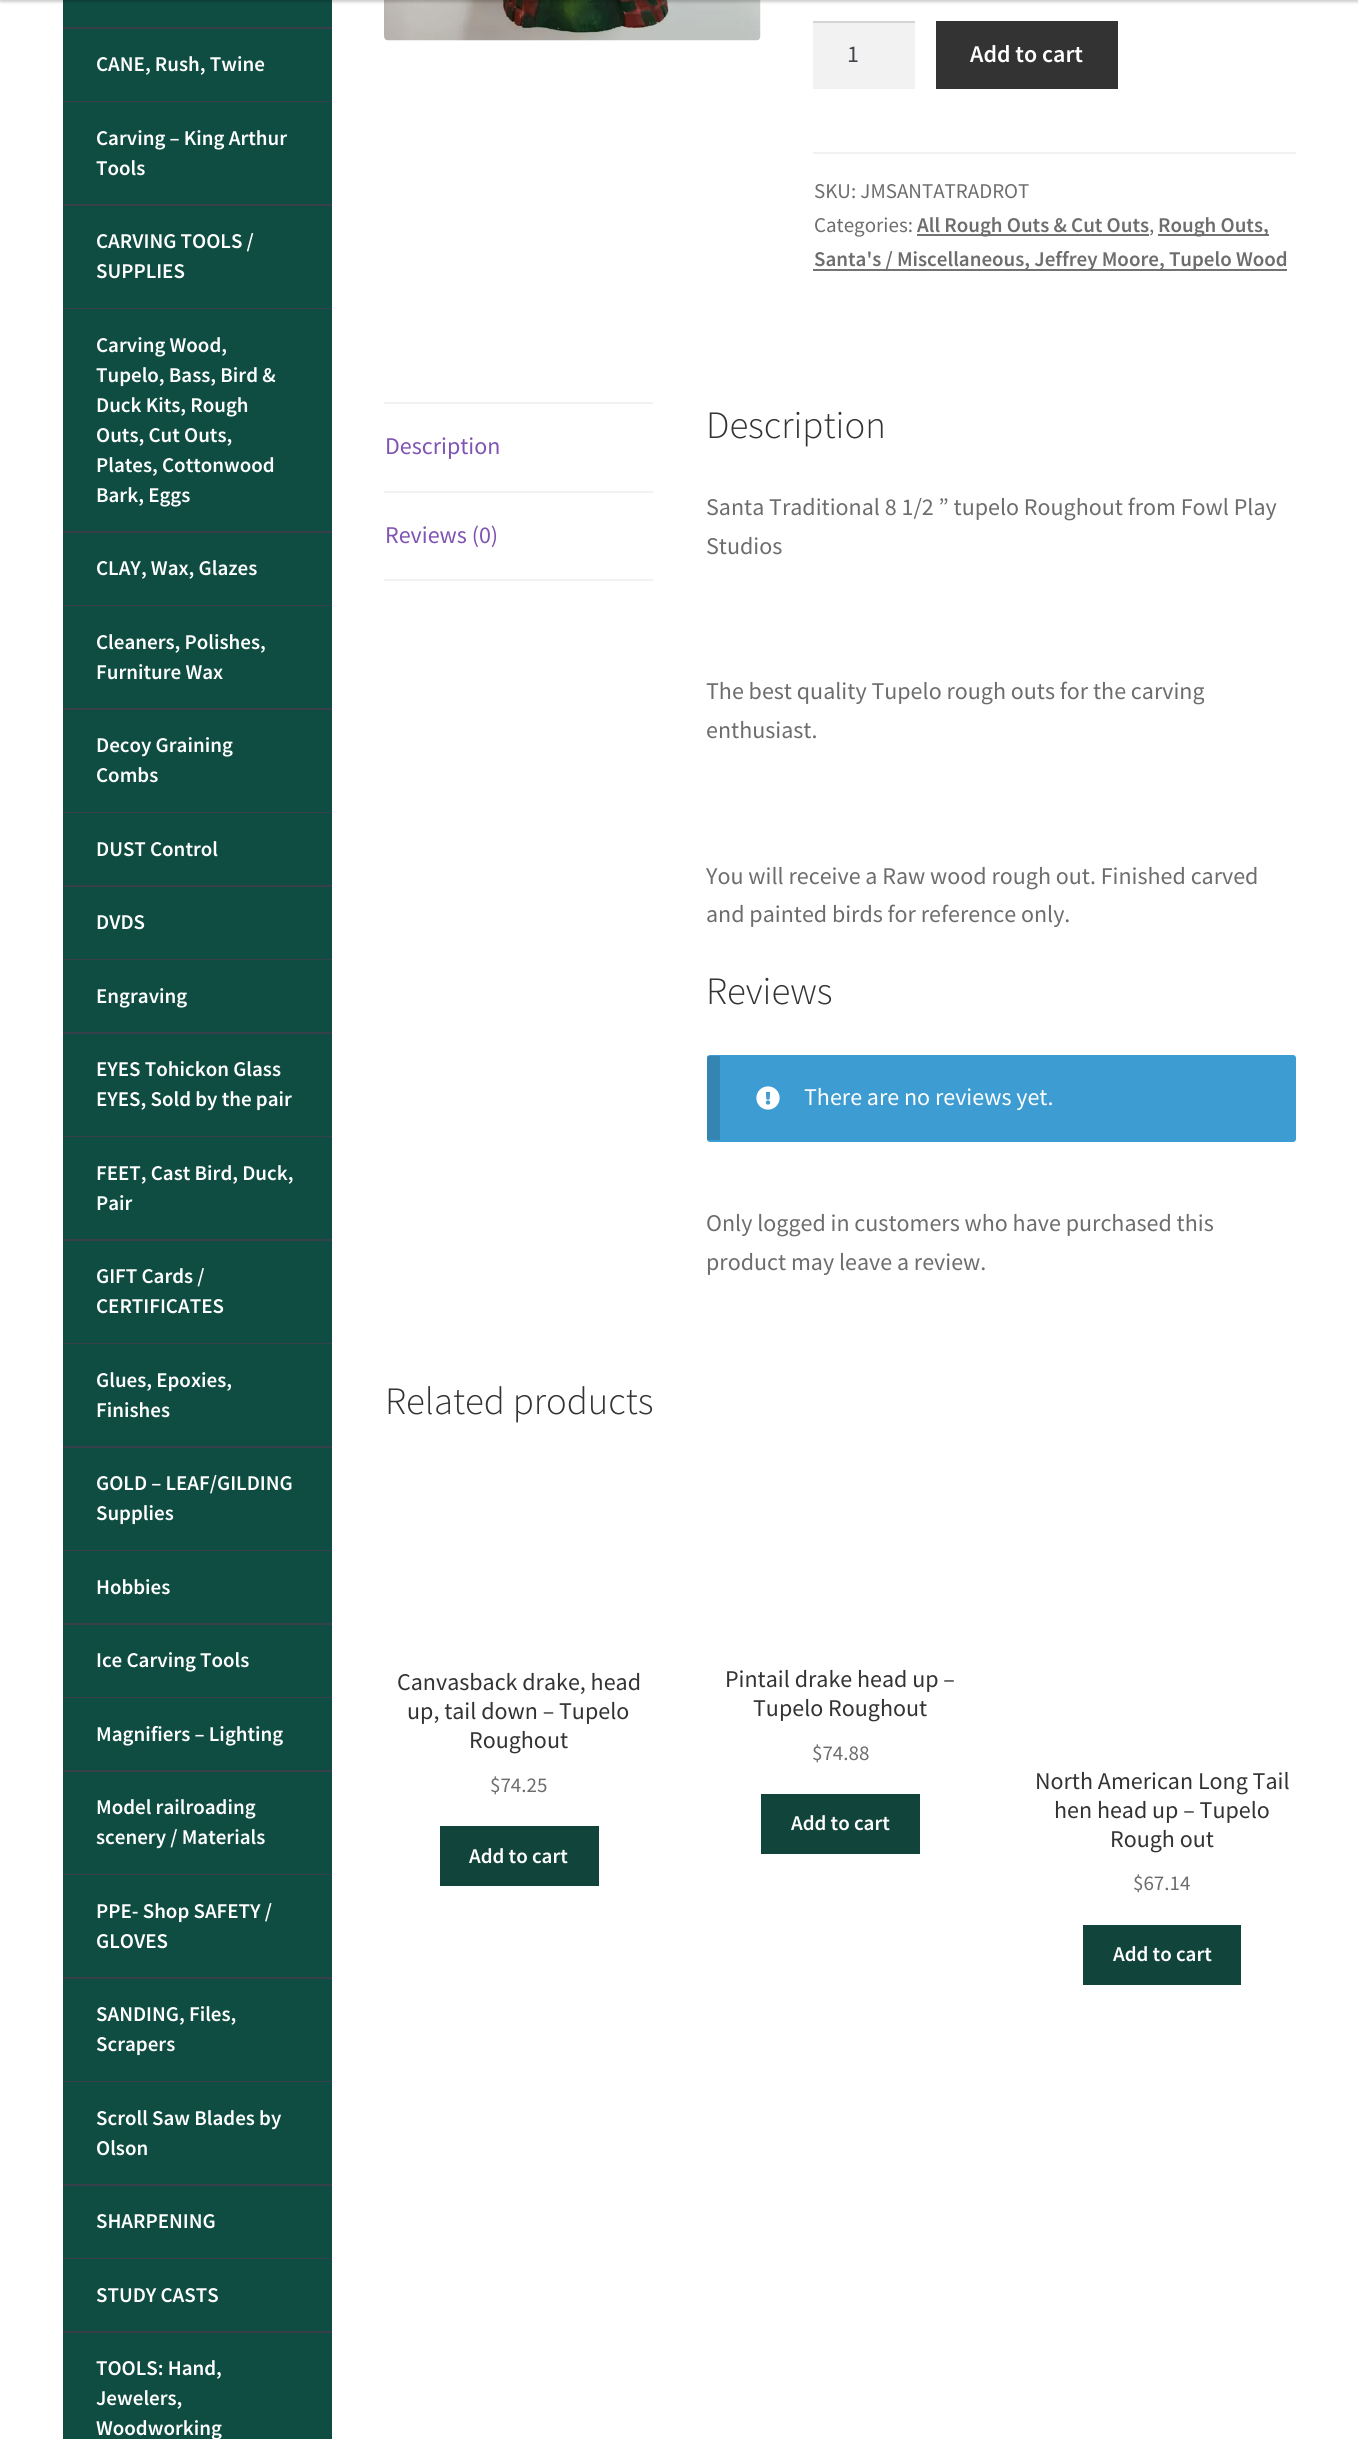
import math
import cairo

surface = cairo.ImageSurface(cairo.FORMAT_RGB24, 1358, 2439)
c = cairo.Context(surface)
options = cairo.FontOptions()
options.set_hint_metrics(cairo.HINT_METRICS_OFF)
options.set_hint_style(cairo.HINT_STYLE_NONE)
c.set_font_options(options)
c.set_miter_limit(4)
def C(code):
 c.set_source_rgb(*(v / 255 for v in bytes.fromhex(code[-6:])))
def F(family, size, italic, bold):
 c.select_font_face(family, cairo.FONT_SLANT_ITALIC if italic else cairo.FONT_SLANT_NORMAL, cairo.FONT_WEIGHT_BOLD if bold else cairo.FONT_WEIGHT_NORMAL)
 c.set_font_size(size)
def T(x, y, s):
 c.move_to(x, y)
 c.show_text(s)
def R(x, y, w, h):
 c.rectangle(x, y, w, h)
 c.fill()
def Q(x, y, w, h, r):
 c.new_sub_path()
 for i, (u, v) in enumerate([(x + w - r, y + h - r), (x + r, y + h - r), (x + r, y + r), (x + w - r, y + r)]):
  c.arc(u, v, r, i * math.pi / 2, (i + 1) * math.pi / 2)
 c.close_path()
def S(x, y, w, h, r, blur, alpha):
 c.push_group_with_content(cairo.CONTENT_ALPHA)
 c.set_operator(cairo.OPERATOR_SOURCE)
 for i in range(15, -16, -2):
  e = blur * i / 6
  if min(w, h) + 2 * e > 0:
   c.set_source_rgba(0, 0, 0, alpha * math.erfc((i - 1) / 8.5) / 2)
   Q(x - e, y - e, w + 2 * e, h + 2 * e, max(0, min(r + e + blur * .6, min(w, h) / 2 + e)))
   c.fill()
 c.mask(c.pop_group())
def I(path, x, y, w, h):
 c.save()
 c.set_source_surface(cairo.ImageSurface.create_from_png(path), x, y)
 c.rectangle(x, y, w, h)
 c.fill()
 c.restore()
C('ffffff')
c.paint()
C('0f4d42')
R(63,0,269,27)
I('1.png',384,0,377,41)
C('000000')
S(0,-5,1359,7,0,1.5,.2)
C('383f4a')
R(63,27,269,2)
C('0f4d42')
R(63,29,269,72)
C('383f4a')
R(63,101,269,1)
F('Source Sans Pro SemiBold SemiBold',21,0,0)
C('ffffff')
T(96,71,'CANE, Rush, Twine')
C('0f4d42')
R(63,102,269,102)
C('383f4a')
R(63,204,269,2)
C('ffffff')
T(96,145,'Carving – King Arthur')
T(96,175,'Tools')
C('0f4d42')
R(63,206,269,102)
C('383f4a')
R(63,308,269,1)
C('ffffff')
T(96,248,'CARVING TOOLS /')
T(96,278,'SUPPLIES')
C('0f4d42')
R(63,309,269,222)
C('383f4a')
R(63,531,269,2)
C('ffffff')
T(96,352,'Carving Wood,')
T(96,382,'Tupelo, Bass, Bird &')
T(96,412,'Duck Kits, Rough')
T(96,442,'Outs, Cut Outs,')
T(96,472,'Plates, Cottonwood')
T(96,502,'Bark, Eggs')
C('0f4d42')
R(63,533,269,72)
C('383f4a')
R(63,605,269,1)
C('ffffff')
T(96,575,'CLAY, Wax, Glazes')
C('0f4d42')
R(63,606,269,102)
C('383f4a')
R(63,708,269,2)
C('ffffff')
T(96,649,'Cleaners, Polishes,')
T(96,679,'Furniture Wax')
C('0f4d42')
R(63,710,269,102)
C('383f4a')
R(63,812,269,1)
C('ffffff')
T(96,752,'Decoy Graining')
T(96,782,'Combs')
C('0f4d42')
R(63,813,269,72)
C('383f4a')
R(63,885,269,2)
C('ffffff')
T(96,856,'DUST Control')
C('0f4d42')
R(63,887,269,72)
C('383f4a')
R(63,959,269,1)
C('ffffff')
T(96,929,'DVDS')
C('0f4d42')
R(63,960,269,72)
C('383f4a')
R(63,1032,269,2)
C('ffffff')
T(96,1003,'Engraving')
C('0f4d42')
R(63,1034,269,102)
C('383f4a')
R(63,1136,269,1)
C('ffffff')
T(96,1076,'EYES Tohickon Glass')
T(96,1106,'EYES, Sold by the pair')
C('0f4d42')
R(63,1137,269,102)
C('383f4a')
R(63,1239,269,2)
C('ffffff')
T(96,1180,'FEET, Cast Bird, Duck,')
T(96,1210,'Pair')
C('0f4d42')
R(63,1241,269,102)
C('383f4a')
R(63,1343,269,1)
C('ffffff')
T(96,1283,'GIFT Cards /')
T(96,1313,'CERTIFICATES')
C('0f4d42')
R(63,1344,269,102)
C('383f4a')
R(63,1446,269,2)
C('ffffff')
T(96,1387,'Glues, Epoxies,')
T(96,1417,'Finishes')
C('0f4d42')
R(63,1448,269,102)
C('383f4a')
R(63,1550,269,1)
C('ffffff')
T(96,1490,'GOLD – LEAF/GILDING')
T(96,1520,'Supplies')
C('0f4d42')
R(63,1551,269,72)
C('383f4a')
R(63,1623,269,2)
C('ffffff')
T(96,1594,'Hobbies')
C('0f4d42')
R(63,1625,269,72)
C('383f4a')
R(63,1697,269,1)
C('ffffff')
T(96,1667,'Ice Carving Tools')
C('0f4d42')
R(63,1698,269,72)
C('383f4a')
R(63,1770,269,2)
C('ffffff')
T(96,1741,'Magnifiers – Lighting')
C('0f4d42')
R(63,1772,269,102)
C('383f4a')
R(63,1874,269,1)
C('ffffff')
T(96,1814,'Model railroading')
T(96,1844,'scenery / Materials')
C('0f4d42')
R(63,1875,269,102)
C('383f4a')
R(63,1977,269,2)
C('ffffff')
T(96,1918,'PPE- Shop SAFETY /')
T(96,1948,'GLOVES')
C('0f4d42')
R(63,1979,269,102)
C('383f4a')
R(63,2081,269,1)
C('ffffff')
T(96,2021,'SANDING, Files,')
T(96,2051,'Scrapers')
C('0f4d42')
R(63,2082,269,102)
C('383f4a')
R(63,2184,269,2)
C('ffffff')
T(96,2125,'Scroll Saw Blades by')
T(96,2155,'Olson')
C('0f4d42')
R(63,2186,269,72)
C('383f4a')
R(63,2258,269,1)
C('ffffff')
T(96,2228,'SHARPENING')
C('0f4d42')
R(63,2259,269,72)
C('383f4a')
R(63,2331,269,2)
C('ffffff')
T(96,2302,'STUDY CASTS')
C('0f4d42')
R(63,2333,269,106)
C('ffffff')
T(96,2375,'TOOLS: Hand,')
T(96,2405,'Jewelers,')
T(96,2435,'Woodworking')
C('f2f2f2')
R(813,23,102,66)
C('d4d4d4')
R(813,21,102,2)
F('Source Sans Pro',24,0,0)
C('43454b')
T(847,62,'1')
C('333333')
R(936,21,182,68)
F('Source Sans Pro SemiBold SemiBold',24,0,0)
C('ffffff')
T(970,62,'Add to cart')
C('f2f2f2')
R(813,152,483,2)
F('Source Sans Pro',21,0,0)
C('6d6d6d')
T(814,198,'SKU: JMSANTATRADROT')
T(814,232,'Categories:')
C('727272')
R(917,234,232,2)
F('Source Sans Pro SemiBold SemiBold',21,0,0)
C('6d6d6d')
T(917,232,'All Rough Outs & Cut Outs')
F('Source Sans Pro',21,0,0)
T(1149,232,',')
C('727272')
R(1158,234,111,2)
F('Source Sans Pro SemiBold SemiBold',21,0,0)
C('6d6d6d')
T(1158,232,'Rough Outs,')
C('727272')
R(813,269,474,2)
C('6d6d6d')
T(814,266,'Santa\'s / Miscellaneous, Jeffrey Moore, Tupelo Wood')
C('f2f2f2')
R(384,402,269,2)
R(384,491,269,2)
F('Source Sans Pro',24,0,0)
C('7f54b3')
T(385,454,'Description')
C('f2f2f2')
R(384,579,269,2)
C('7f54b3')
T(385,543,'Reviews (0)')
F('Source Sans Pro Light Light',38.75,0,0)
C('333333')
T(706,438,'Description')
F('Source Sans Pro',24,0,0)
C('6d6d6d')
T(706,515,'Santa Traditional 8 1/2 ” tupelo Roughout from Fowl Play')
T(706,554,'Studios')
T(706,699,'The best quality Tupelo rough outs for the carving')
T(706,738,'enthusiast.')
T(706,884,'You will receive a Raw wood rough out. Finished carved')
T(706,922,'and painted birds for reference only.')
F('Source Sans Pro Light Light',38.75,0,0)
C('333333')
T(706,1004,'Reviews')
C('3d9cd2')
Q(707,1055,589,87,3)
c.fill()
c.set_source_rgba(0,0,0,0.15)
R(707,1056,13,84)
I('2.png',756,1086,24,24)
F('Source Sans Pro',24,0,0)
C('ffffff')
T(804,1105,'There are no reviews yet.')
C('6d6d6d')
T(706,1231,'Only logged in customers who have purchased this')
T(706,1270,'product may leave a review.')
F('Source Sans Pro Light Light',38.75,0,0)
C('333333')
T(385,1414,'Related products')
F('Source Sans Pro',24,0,0)
T(397,1690,'Canvasback drake, head')
T(407,1719,'up, tail down – Tupelo')
T(469,1748,'Roughout')
F('Source Sans Pro',21,0,0)
C('6d6d6d')
T(490,1792,'$74.25')
C('11443a')
R(440,1826,159,60)
F('Source Sans Pro SemiBold SemiBold',21,0,0)
C('ffffff')
T(469,1863,'Add to cart')
F('Source Sans Pro',24,0,0)
C('333333')
T(725,1687,'Pintail drake head up –')
T(753,1716,'Tupelo Roughout')
F('Source Sans Pro',21,0,0)
C('6d6d6d')
T(812,1760,'$74.88')
C('11443a')
R(761,1794,159,60)
F('Source Sans Pro SemiBold SemiBold',21,0,0)
C('ffffff')
T(791,1830,'Add to cart')
F('Source Sans Pro',24,0,0)
C('333333')
T(1035,1789,'North American Long Tail')
T(1054,1818,'hen head up – Tupelo')
T(1110,1847,'Rough out')
F('Source Sans Pro',21,0,0)
C('6d6d6d')
T(1133,1890,'$67.14')
C('11443a')
R(1083,1925,158,60)
F('Source Sans Pro SemiBold SemiBold',21,0,0)
C('ffffff')
T(1113,1961,'Add to cart')
surface.write_to_png('o.png')
